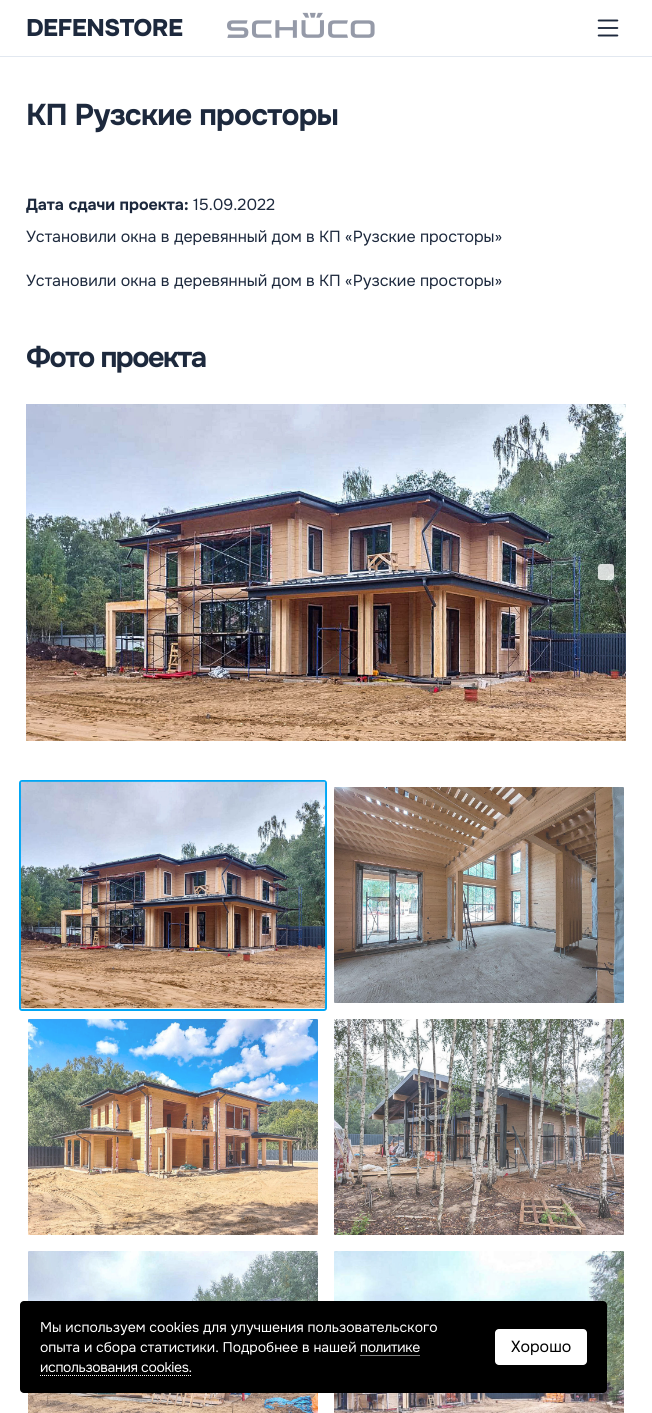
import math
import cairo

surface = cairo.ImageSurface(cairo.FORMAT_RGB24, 652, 1413)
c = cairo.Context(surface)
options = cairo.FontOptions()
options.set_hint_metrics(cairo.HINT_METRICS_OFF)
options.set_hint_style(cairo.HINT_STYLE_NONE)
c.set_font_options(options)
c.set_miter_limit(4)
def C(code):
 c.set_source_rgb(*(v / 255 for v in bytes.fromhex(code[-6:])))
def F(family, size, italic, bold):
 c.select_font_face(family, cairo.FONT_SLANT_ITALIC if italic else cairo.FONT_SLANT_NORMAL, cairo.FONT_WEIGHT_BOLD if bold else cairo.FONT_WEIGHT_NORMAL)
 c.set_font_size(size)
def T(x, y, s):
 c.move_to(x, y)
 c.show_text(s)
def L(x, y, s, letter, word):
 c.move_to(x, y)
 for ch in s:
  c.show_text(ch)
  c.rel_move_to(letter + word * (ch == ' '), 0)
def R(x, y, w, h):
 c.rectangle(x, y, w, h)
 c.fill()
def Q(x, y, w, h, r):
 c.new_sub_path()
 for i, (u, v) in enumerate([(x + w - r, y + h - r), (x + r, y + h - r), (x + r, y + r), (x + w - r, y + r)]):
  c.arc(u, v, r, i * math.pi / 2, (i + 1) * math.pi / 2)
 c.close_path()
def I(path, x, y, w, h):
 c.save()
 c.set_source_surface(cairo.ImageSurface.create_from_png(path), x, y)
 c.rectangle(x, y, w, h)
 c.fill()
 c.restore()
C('ffffff')
c.paint()
C('e2e8f0')
R(0,56,652,1)
F('Onest ExtraBold',24,0,0)
C('1d293d')
L(26,36,'DEFENSTORE',-.5,0)
I('1.png',227,12,148,26)
I('2.png',597,19,22,18)
F('Onest',30,0,1)
L(26,125,'КП Рузские просторы',-.75,0)
F('Onest',16,0,1)
T(26,210,'Дата сдачи проекта:')
F('Onest',16,0,0)
T(193,210,'15.09.2022')
T(26,242,'Установили окна в деревянный дом в КП «Рузские просторы»')
T(26,286,'Установили окна в деревянный дом в КП «Рузские просторы»')
F('Onest',28.75,0,1)
L(26,367,'Фото проекта',-1.5,0)
I('3.png',26,404,600,337)
c.set_source_rgba(1,1,1,0.8)
Q(598,564,16,16,3)
c.fill()
Q(20,781,306,229,2)
C('00a6f4')
c.stroke()
I('4.png',20,781,306,228)
I('5.png',334,787,290,216)
I('6.png',28,1019,290,216)
I('7.png',334,1019,290,216)
I('8.png',28,1251,290,162)
I('9.png',334,1251,290,162)
C('000000')
Q(20,1301,587,92,4)
c.fill()
F('Onest',14,0,0)
C('ffffff')
T(40,1332,'Мы используем cookies для улучшения пользовательского')
T(40,1352,'опыта и сбора статистики. Подробнее в нашей')
L(360,1352,'политике',-.35,0)
c.new_path()
c.move_to(360.5,1355.5)
c.line_to(420,1355.5)
c.set_line_width(1)
c.set_dash([1,1])
c.stroke()
L(40,1372,'использования cookies.',-.35,0)
c.new_path()
c.move_to(40,1375.5)
c.line_to(192,1375.5)
c.stroke()
Q(495,1329,92,36,4)
c.fill()
F('Onest',16,0,0)
C('000000')
T(511,1352,'Хорошо')
surface.write_to_png('o.png')
